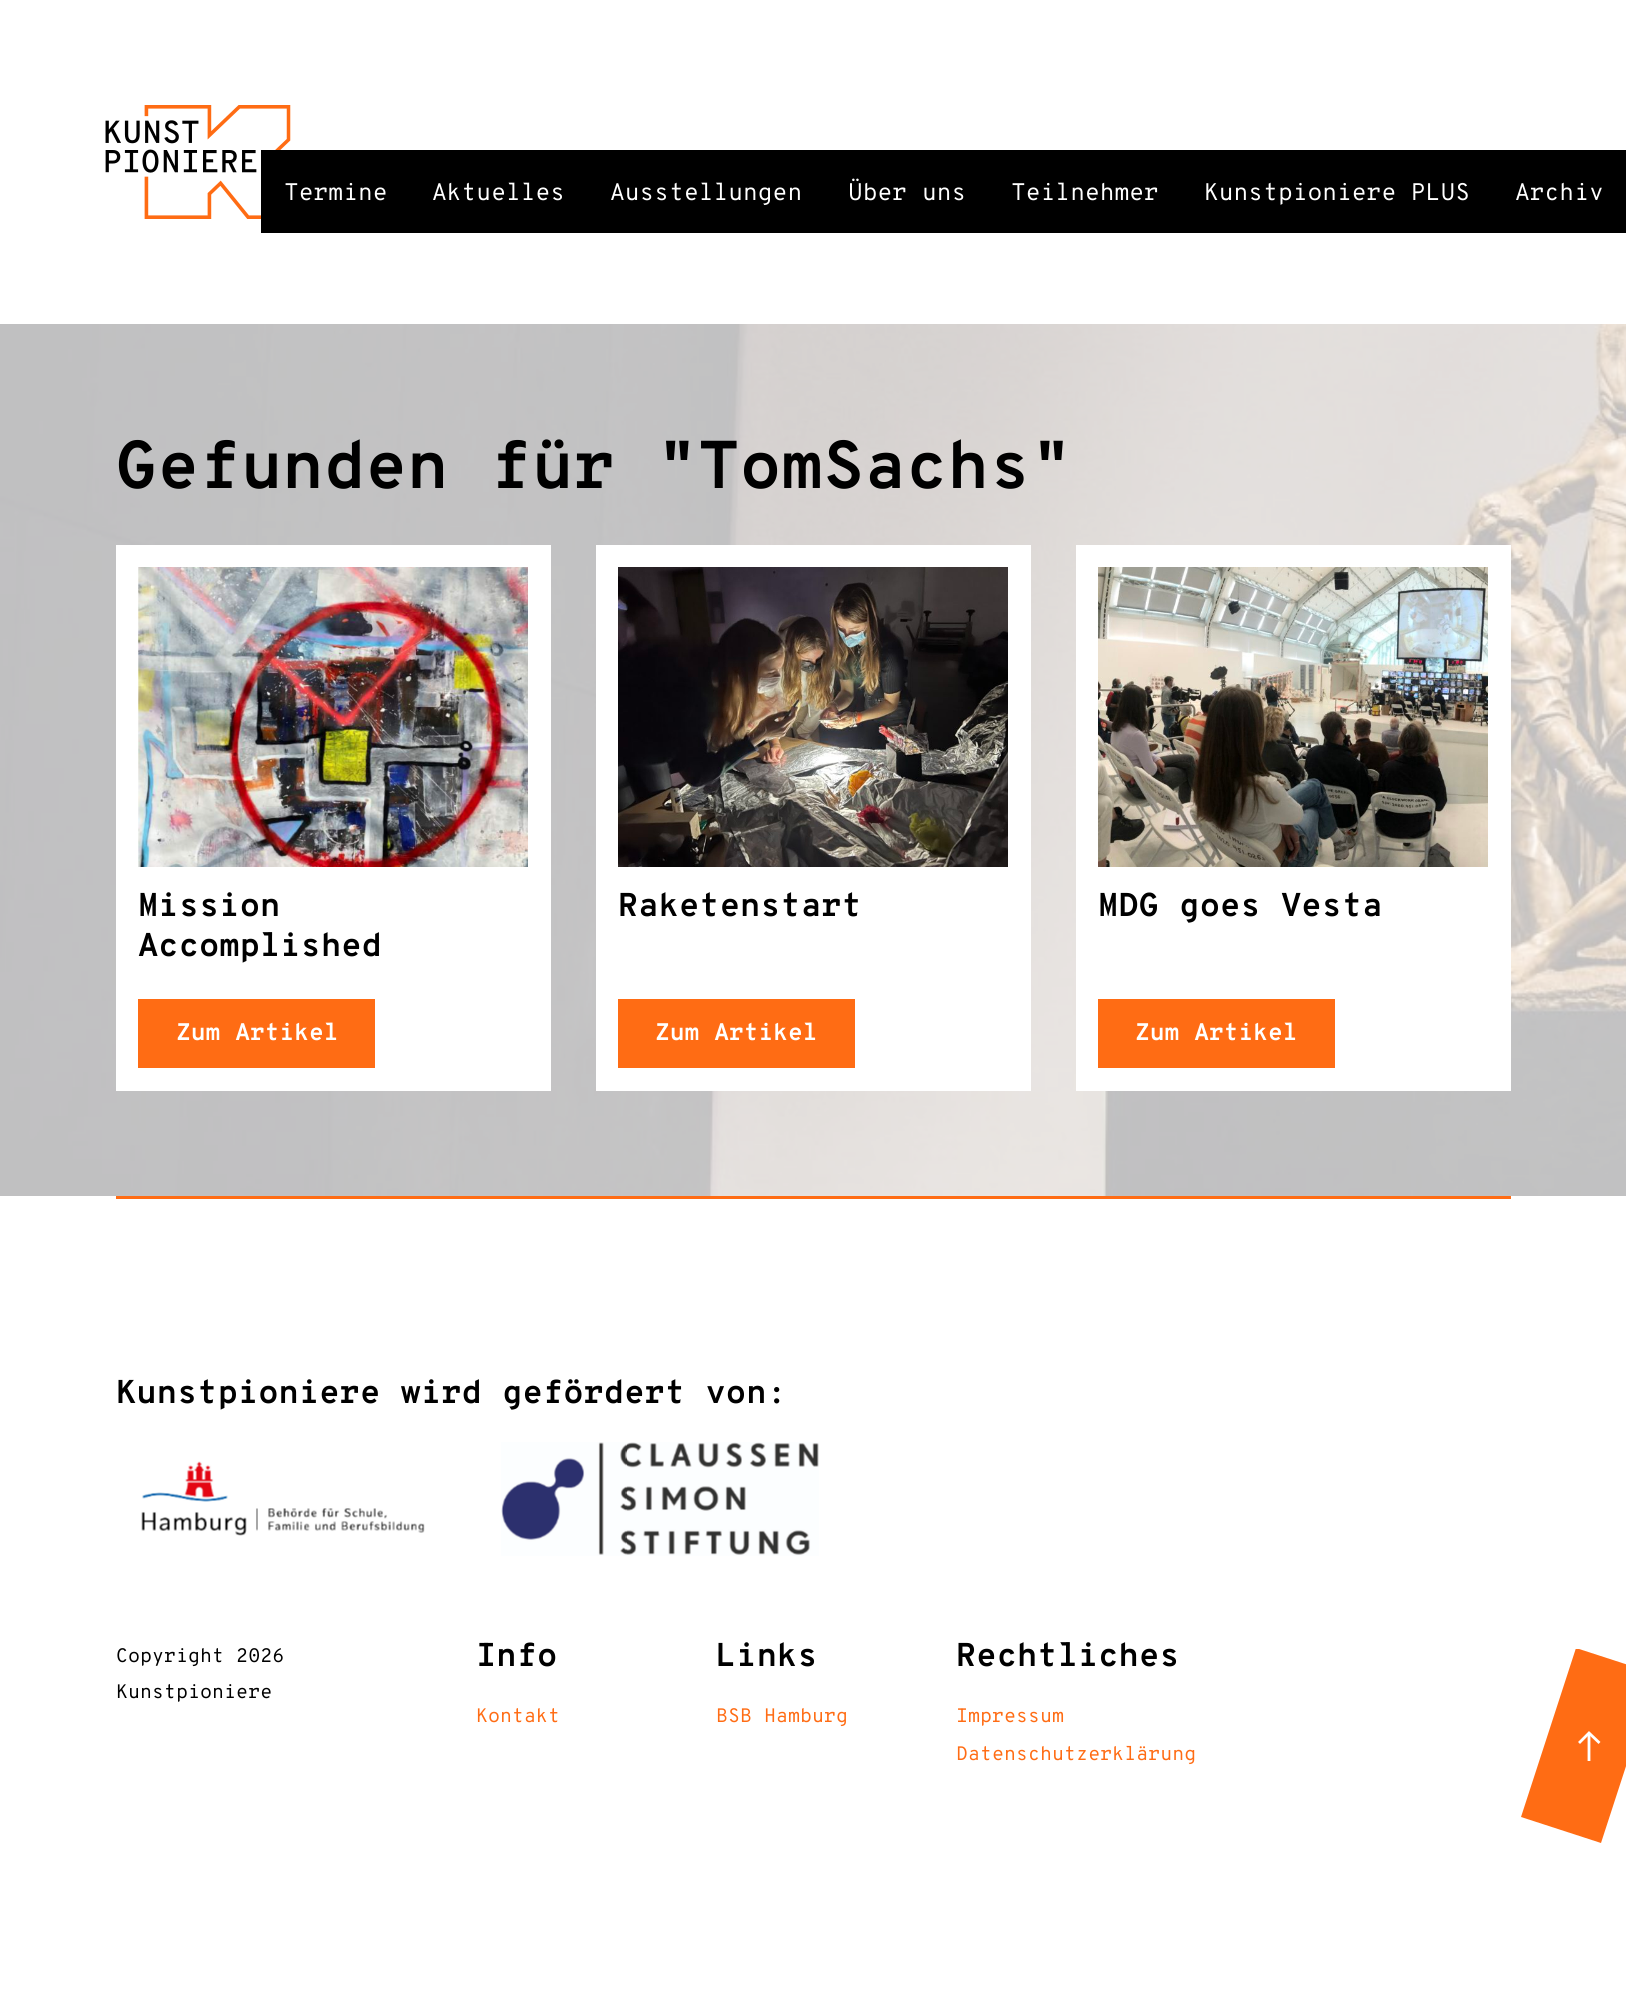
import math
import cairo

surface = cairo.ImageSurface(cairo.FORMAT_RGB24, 1626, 1993)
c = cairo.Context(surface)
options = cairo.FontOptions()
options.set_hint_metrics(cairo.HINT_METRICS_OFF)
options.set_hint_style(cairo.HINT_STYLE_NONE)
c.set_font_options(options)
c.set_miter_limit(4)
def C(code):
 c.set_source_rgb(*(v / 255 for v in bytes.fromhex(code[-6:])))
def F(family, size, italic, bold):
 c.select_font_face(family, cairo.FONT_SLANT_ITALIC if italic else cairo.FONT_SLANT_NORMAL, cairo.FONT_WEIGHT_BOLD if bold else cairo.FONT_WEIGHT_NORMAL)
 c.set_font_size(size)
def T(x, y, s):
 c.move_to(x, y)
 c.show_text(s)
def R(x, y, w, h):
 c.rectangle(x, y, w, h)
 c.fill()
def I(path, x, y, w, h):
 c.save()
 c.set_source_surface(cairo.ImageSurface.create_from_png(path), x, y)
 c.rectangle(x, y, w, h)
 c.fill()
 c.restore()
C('ffffff')
c.paint()
I('1.png',105,105,186,114)
C('000000')
R(261,150,1365,83)
F('Overpass Mono',24,0,0)
C('ffffff')
T(284,200,'Termine')
T(432,200,'Aktuelles')
T(610,200,'Ausstellungen')
T(848,200,'Über uns')
T(1011,200,'Teilnehmer')
T(1204,200,'Kunstpioniere PLUS')
T(1515,200,'Archiv')
I('2.png',0,324,1626,872)
F('Overpass Mono',67.5,0,1)
C('000000')
T(116,488,'Gefunden für "TomSachs"')
C('ffffff')
R(116,545,435,546)
I('3.png',138,567,390,300)
F('Overpass Mono',33,0,1)
C('000000')
T(138,916,'Mission')
T(138,956,'Accomplished')
C('ff6c14')
R(138,999,237,69)
F('Overpass Mono',24,0,1)
C('ffffff')
T(176,1040,'Zum Artikel')
R(596,545,435,546)
I('4.png',618,567,390,300)
F('Overpass Mono',33,0,1)
C('000000')
T(618,916,'Raketenstart')
C('ff6c14')
R(618,999,237,69)
F('Overpass Mono',24,0,1)
C('ffffff')
T(655,1040,'Zum Artikel')
R(1076,545,435,546)
I('5.png',1098,567,390,300)
F('Overpass Mono',33,0,1)
C('000000')
T(1098,916,'MDG goes Vesta')
C('ff6c14')
R(1098,999,237,69)
F('Overpass Mono',24,0,1)
C('ffffff')
T(1135,1040,'Zum Artikel')
C('ff6c14')
R(116,1196,1395,3)
F('Overpass Mono',33,0,1)
C('000000')
T(116,1403,'Kunstpioniere wird gefördert von:')
I('6.png',141,1461,284,75)
I('7.png',501,1442,318,114)
F('Overpass Mono',19.5,0,0)
T(116,1662,'Copyright 2026')
T(116,1698,'Kunstpioniere')
F('Overpass Mono',33,0,1)
T(476,1666,'Info')
F('Overpass Mono',19.5,0,0)
C('ff6c14')
T(476,1722,'Kontakt')
F('Overpass Mono',33,0,1)
C('000000')
T(716,1666,'Links')
F('Overpass Mono',19.5,0,0)
C('ff6c14')
T(716,1722,'BSB Hamburg')
F('Overpass Mono',33,0,1)
C('000000')
T(956,1666,'Rechtliches')
F('Overpass Mono',19.5,0,0)
C('ff6c14')
T(956,1722,'Impressum')
T(956,1760,'Datenschutzerklärung')
c.save()
c.rectangle(1521,1649,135,195)
c.clip()
c.new_path()
c.move_to(1576,1648)
c.line_to(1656,1674)
c.line_to(1601,1843)
c.line_to(1521,1817)
c.close_path()
c.fill()
c.restore()
c.new_path()
c.move_to(1589,1761)
c.line_to(1589,1733)
C('ffffff')
c.set_line_width(2.8)
c.stroke()
c.new_path()
c.move_to(1580,1742)
c.line_to(1589,1733)
c.line_to(1598.5,1742)
c.set_line_cap(cairo.LINE_CAP_SQUARE)
c.stroke()
surface.write_to_png('o.png')
